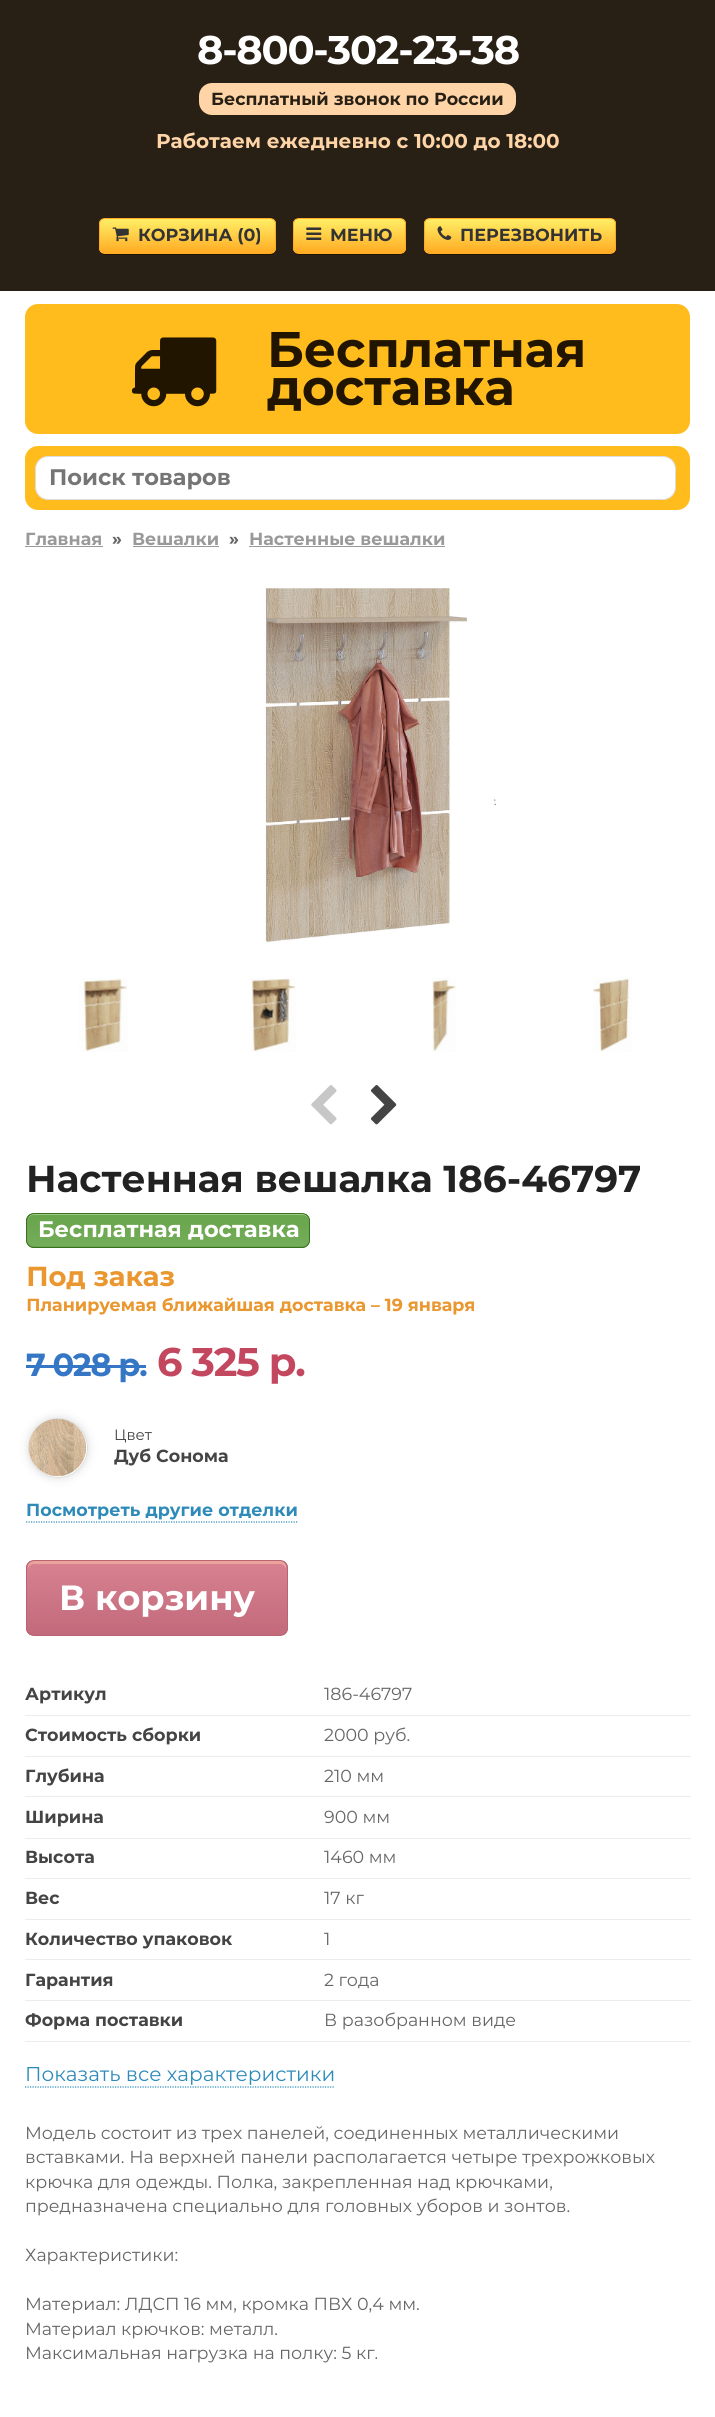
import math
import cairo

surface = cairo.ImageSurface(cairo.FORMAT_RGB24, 715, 2417)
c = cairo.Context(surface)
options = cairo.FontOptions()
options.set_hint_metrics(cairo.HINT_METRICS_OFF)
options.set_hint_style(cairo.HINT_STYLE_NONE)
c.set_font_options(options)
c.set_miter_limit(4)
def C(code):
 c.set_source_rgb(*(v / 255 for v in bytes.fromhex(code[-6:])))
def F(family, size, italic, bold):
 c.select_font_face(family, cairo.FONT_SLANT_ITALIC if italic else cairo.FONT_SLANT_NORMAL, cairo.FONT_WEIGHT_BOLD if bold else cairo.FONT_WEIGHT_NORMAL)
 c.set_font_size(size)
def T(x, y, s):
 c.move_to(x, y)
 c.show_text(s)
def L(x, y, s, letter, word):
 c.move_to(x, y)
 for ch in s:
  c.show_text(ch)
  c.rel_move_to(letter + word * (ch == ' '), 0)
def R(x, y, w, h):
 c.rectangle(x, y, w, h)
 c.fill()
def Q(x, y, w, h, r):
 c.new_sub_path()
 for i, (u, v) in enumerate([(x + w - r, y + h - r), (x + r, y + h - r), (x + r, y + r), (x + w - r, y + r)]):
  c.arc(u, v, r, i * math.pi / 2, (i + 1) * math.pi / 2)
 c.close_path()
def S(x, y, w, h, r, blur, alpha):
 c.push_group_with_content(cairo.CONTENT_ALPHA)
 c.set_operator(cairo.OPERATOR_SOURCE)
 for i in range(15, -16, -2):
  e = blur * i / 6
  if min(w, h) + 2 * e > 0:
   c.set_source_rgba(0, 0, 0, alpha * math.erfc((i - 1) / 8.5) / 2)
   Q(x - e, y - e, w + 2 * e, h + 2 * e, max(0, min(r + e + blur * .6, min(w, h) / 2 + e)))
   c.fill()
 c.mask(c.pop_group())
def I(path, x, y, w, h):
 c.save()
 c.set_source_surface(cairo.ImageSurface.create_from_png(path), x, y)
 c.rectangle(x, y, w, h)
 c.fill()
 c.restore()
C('ffffff')
c.paint()
C('292015')
R(0,0,715,291)
F('Montserrat',40,0,1)
C('ffffff')
L(197,64,'8-800-302-23-38',-1.25,0)
C('ffd5a8')
Q(199,83,317,32,13)
c.fill()
F('Montserrat',17.5,0,1)
C('292015')
T(211,105,'Бесплатный звонок по России')
F('Montserrat',20,0,1)
C('ffd5a8')
T(156,148,'Работаем ежедневно с 10:00 до 18:00')
C('1d1408')
c.new_path()
c.move_to(99,249)
c.curve_to(99,252,102,255,105,255)
c.line_to(270,255)
c.curve_to(273,255,276,252,276,249)
c.curve_to(275,252,273,254,270,254)
c.line_to(105,254)
c.curve_to(102,254,100,252,99,249)
c.close_path()
c.fill()
c.save()
Q(99,218,177,36,6)
c.clip()
gradient = cairo.LinearGradient(188,219,188,253)
gradient.add_color_stop_rgba(.05,1,0.925,0.392,1)
gradient.add_color_stop_rgba(1,1,0.671,0.137,1)
c.set_source(gradient)
R(99,219,177,34)
c.restore()
Q(99.5,218.5,176,35,5.5)
C('ffaa22')
c.set_line_width(1)
c.stroke()
I('1.png',112,227,17,15)
F('Montserrat',17.5,0,1)
C('333333')
T(138,241,'КОРЗИНА (0)')
C('1d1408')
c.new_path()
c.move_to(293,250)
c.curve_to(294,253,296,255,299,255)
c.line_to(400,255)
c.curve_to(403,255,406,252,406,249)
c.curve_to(405,252,403,254,400,254)
c.line_to(299,254)
c.curve_to(296,254,294,252,293,250)
c.close_path()
c.fill()
c.save()
Q(293,218,113,36,6)
c.clip()
gradient = cairo.LinearGradient(349,219,349,253)
gradient.add_color_stop_rgba(.05,1,0.925,0.392,1)
gradient.add_color_stop_rgba(1,1,0.671,0.137,1)
c.set_source(gradient)
R(293,219,113,34)
c.restore()
Q(293.5,218.5,112,35,5.5)
C('ffaa22')
c.stroke()
I('2.png',306,227,16,13)
C('333333')
T(330,241,'МЕНЮ')
C('1d1408')
c.new_path()
c.move_to(424,249)
c.curve_to(424,252,427,255,430,255)
c.line_to(610,255)
c.curve_to(613,255,616,252,616,249)
c.curve_to(615,252,613,254,610,254)
c.line_to(430,254)
c.curve_to(427,254,425,252,424,249)
c.close_path()
c.fill()
c.save()
Q(424,218,192,36,6)
c.clip()
gradient = cairo.LinearGradient(520,219,520,253)
gradient.add_color_stop_rgba(.05,1,0.925,0.392,1)
gradient.add_color_stop_rgba(1,1,0.671,0.137,1)
c.set_source(gradient)
R(424,219,192,34)
c.restore()
Q(424.5,218.5,191,35,5.5)
C('ffaa22')
c.stroke()
I('3.png',437,226,15,14)
C('333333')
T(460,241,'ПЕРЕЗВОНИТЬ')
C('ffbc1c')
Q(25,304,665,130,13)
c.fill()
I('4.png',131,337,86,70)
F('Montserrat',50,0,1)
C('221500')
T(267,367,'Бесплатная')
T(267,405,'доставка')
C('ffbc1c')
Q(25,446,665,64,13)
c.fill()
C('ffffff')
Q(35.5,456.5,640,43,12.5)
c.fill_preserve()
C('dddddd')
c.stroke()
F('Montserrat',22.5,0,1)
C('757575')
T(49,485,'Поиск товаров')
F('Montserrat',17.5,0,1)
C('999999')
T(25,545,'Главная')
R(25,546,78,1)
C('666666')
T(112,545,'»')
C('999999')
T(132,545,'Вешалки')
R(133,546,86,1)
C('666666')
T(229,545,'»')
C('999999')
T(249,545,'Настенные вешалки')
R(249,546,196,1)
I('5.png',264,588,233,355)
I('6.png',79,978,49,74)
I('7.png',249,978,47,74)
I('8.png',432,977,24,75)
I('9.png',593,977,39,75)
I('10.png',311,1085,26,40)
I('11.png',371,1085,26,40)
F('Montserrat',37.5,0,1)
C('222222')
T(26,1192,'Настенная вешалка 186-46797')
c.save()
Q(26,1213,284,35,8)
c.clip()
gradient = cairo.LinearGradient(168,1214,168,1246)
gradient.add_color_stop_rgba(.05,0.408,0.647,0.294,1)
gradient.add_color_stop_rgba(1,0.455,0.678,0.353,1)
c.set_source(gradient)
R(26,1214,284,32)
gradient = cairo.LinearGradient(168,1246,168,1279)
gradient.add_color_stop_rgba(.05,0.408,0.647,0.294,1)
gradient.add_color_stop_rgba(1,0.455,0.678,0.353,1)
c.set_source(gradient)
R(26,1246,284,2)
c.restore()
C('9acc85')
c.new_path()
c.move_to(34,1215)
c.line_to(302,1215)
c.curve_to(306,1215,309,1218,309,1221)
c.line_to(309,1220)
c.curve_to(309,1217,306,1214,303,1214)
c.line_to(34,1214)
c.curve_to(31,1214,28,1217,28,1220)
c.line_to(28,1221)
c.curve_to(28,1218,30,1215,34,1215)
c.close_path()
c.fill()
Q(26.5,1213.5,283,34,7.5)
C('3b6e22')
c.stroke()
F('Montserrat',22.5,0,1)
C('ffffff')
T(38,1237,'Бесплатная доставка')
I('12.png',27,1266,447,49)
F('Montserrat',32,0,1)
C('3576c5')
L(26,1376,'7 028 р.',-1.25,0)
R(26,1365,120,3)
F('Montserrat',40,0,1)
C('c3485f')
L(157,1376,'6 325 р.',-1.25,0)
c.save()
c.set_fill_rule(cairo.FILL_RULE_EVEN_ODD)
c.new_path()
c.move_to(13,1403)
c.line_to(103,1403)
c.line_to(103,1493)
c.line_to(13,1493)
c.close_path()
c.move_to(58,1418)
c.curve_to(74.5,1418,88,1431.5,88,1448)
c.curve_to(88,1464.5,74.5,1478,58,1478)
c.curve_to(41.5,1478,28,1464.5,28,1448)
c.curve_to(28,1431.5,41.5,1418,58,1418)
c.close_path()
c.clip()
C('dddddd')
S(28,1418,60,60,30,4.5,1)
c.restore()
c.arc(58,1448,29.5,0,2 * math.pi)
C('dddddd')
c.stroke()
I('13.png',29,1419,58,58)
F('Montserrat',15,0,0)
C('444444')
T(114,1440,'Цвет')
F('Montserrat',17.5,0,1)
T(114,1462,'Дуб Сонома')
C('2e8bb9')
T(26,1516,'Посмотреть другие отделки')
c.new_path()
c.move_to(26,1522)
c.line_to(297.5,1522)
c.set_line_width(1.2)
c.set_dash([1.25,1.25])
c.stroke()
c.save()
Q(26,1560,262,76,8)
c.clip()
gradient = cairo.LinearGradient(157,1561,157,1635)
gradient.add_color_stop_rgba(.05,0.839,0.502,0.565,1)
gradient.add_color_stop_rgba(1,0.761,0.416,0.482,1)
c.set_source(gradient)
R(26,1561,262,74)
c.restore()
C('eca39c')
c.new_path()
c.move_to(34,1564)
c.line_to(280,1564)
c.curve_to(283,1564,286,1567,286,1570)
c.line_to(286,1567)
c.curve_to(286,1564,283,1561,280,1561)
c.line_to(34,1561)
c.curve_to(31,1561,28,1564,28,1567)
c.line_to(28,1570)
c.curve_to(28,1567,30,1564,34,1564)
c.close_path()
c.fill()
Q(26.5,1560.5,261,75,7.5)
C('b96373')
c.set_line_width(1)
c.set_dash([])
c.stroke()
F('Montserrat',35,0,1)
C('ffffff')
T(59,1610,'В корзину')
F('Montserrat',17.5,0,1)
C('444444')
T(25,1700,'Артикул')
C('ececec')
R(25,1715,666,1)
F('Montserrat',17.5,0,0)
C('666666')
T(324,1700,'186-46797')
F('Montserrat',17.5,0,1)
C('444444')
T(25,1741,'Стоимость сборки')
C('ececec')
R(25,1756,666,1)
F('Montserrat',17.5,0,0)
C('666666')
T(324,1741,'2000 руб.')
F('Montserrat',17.5,0,1)
C('444444')
T(25,1782,'Глубина')
C('ececec')
R(25,1796,666,1)
F('Montserrat',17.5,0,0)
C('666666')
T(324,1782,'210 мм')
F('Montserrat',17.5,0,1)
C('444444')
T(25,1823,'Ширина')
C('ececec')
R(25,1838,666,1)
F('Montserrat',17.5,0,0)
C('666666')
T(324,1823,'900 мм')
F('Montserrat',17.5,0,1)
C('444444')
T(25,1863,'Высота')
C('ececec')
R(25,1878,666,1)
F('Montserrat',17.5,0,0)
C('666666')
T(324,1863,'1460 мм')
F('Montserrat',17.5,0,1)
C('444444')
T(25,1904,'Вес')
C('ececec')
R(25,1919,666,1)
F('Montserrat',17.5,0,0)
C('666666')
T(324,1904,'17 кг')
F('Montserrat',17.5,0,1)
C('444444')
T(25,1945,'Количество упаковок')
C('ececec')
R(25,1959,666,1)
F('Montserrat',17.5,0,0)
C('666666')
T(324,1945,'1')
F('Montserrat',17.5,0,1)
C('444444')
T(25,1986,'Гарантия')
C('ececec')
R(25,2000,666,1)
F('Montserrat',17.5,0,0)
C('666666')
T(324,1986,'2 года')
F('Montserrat',17.5,0,1)
C('444444')
T(25,2026,'Форма поставки')
C('ececec')
R(25,2041,666,1)
F('Montserrat',17.5,0,0)
C('666666')
T(324,2026,'В разобранном виде')
F('Montserrat',20,0,0)
C('2e8bb9')
T(25,2081,'Показать все характеристики')
c.new_path()
c.move_to(25,2087)
c.line_to(335,2087)
c.set_line_width(1.2)
c.set_dash([1.25,1.25])
c.stroke()
F('Montserrat',17.5,0,0)
C('666666')
T(25,2139,'Модель состоит из трех панелей, соединенных металлическими')
T(25,2163,'вставками. На верхней панели располагается четыре трехрожковых')
T(25,2188,'крючка для одежды. Полка, закрепленная над крючками,')
T(25,2212,'предназначена специально для головных уборов и зонтов.')
T(25,2261,'Характеристики:')
T(25,2310,'Материал: ЛДСП 16 мм, кромка ПВХ 0,4 мм.')
T(25,2335,'Материал крючков: металл.')
T(25,2359,'Максимальная нагрузка на полку: 5 кг.')
surface.write_to_png('o.png')
